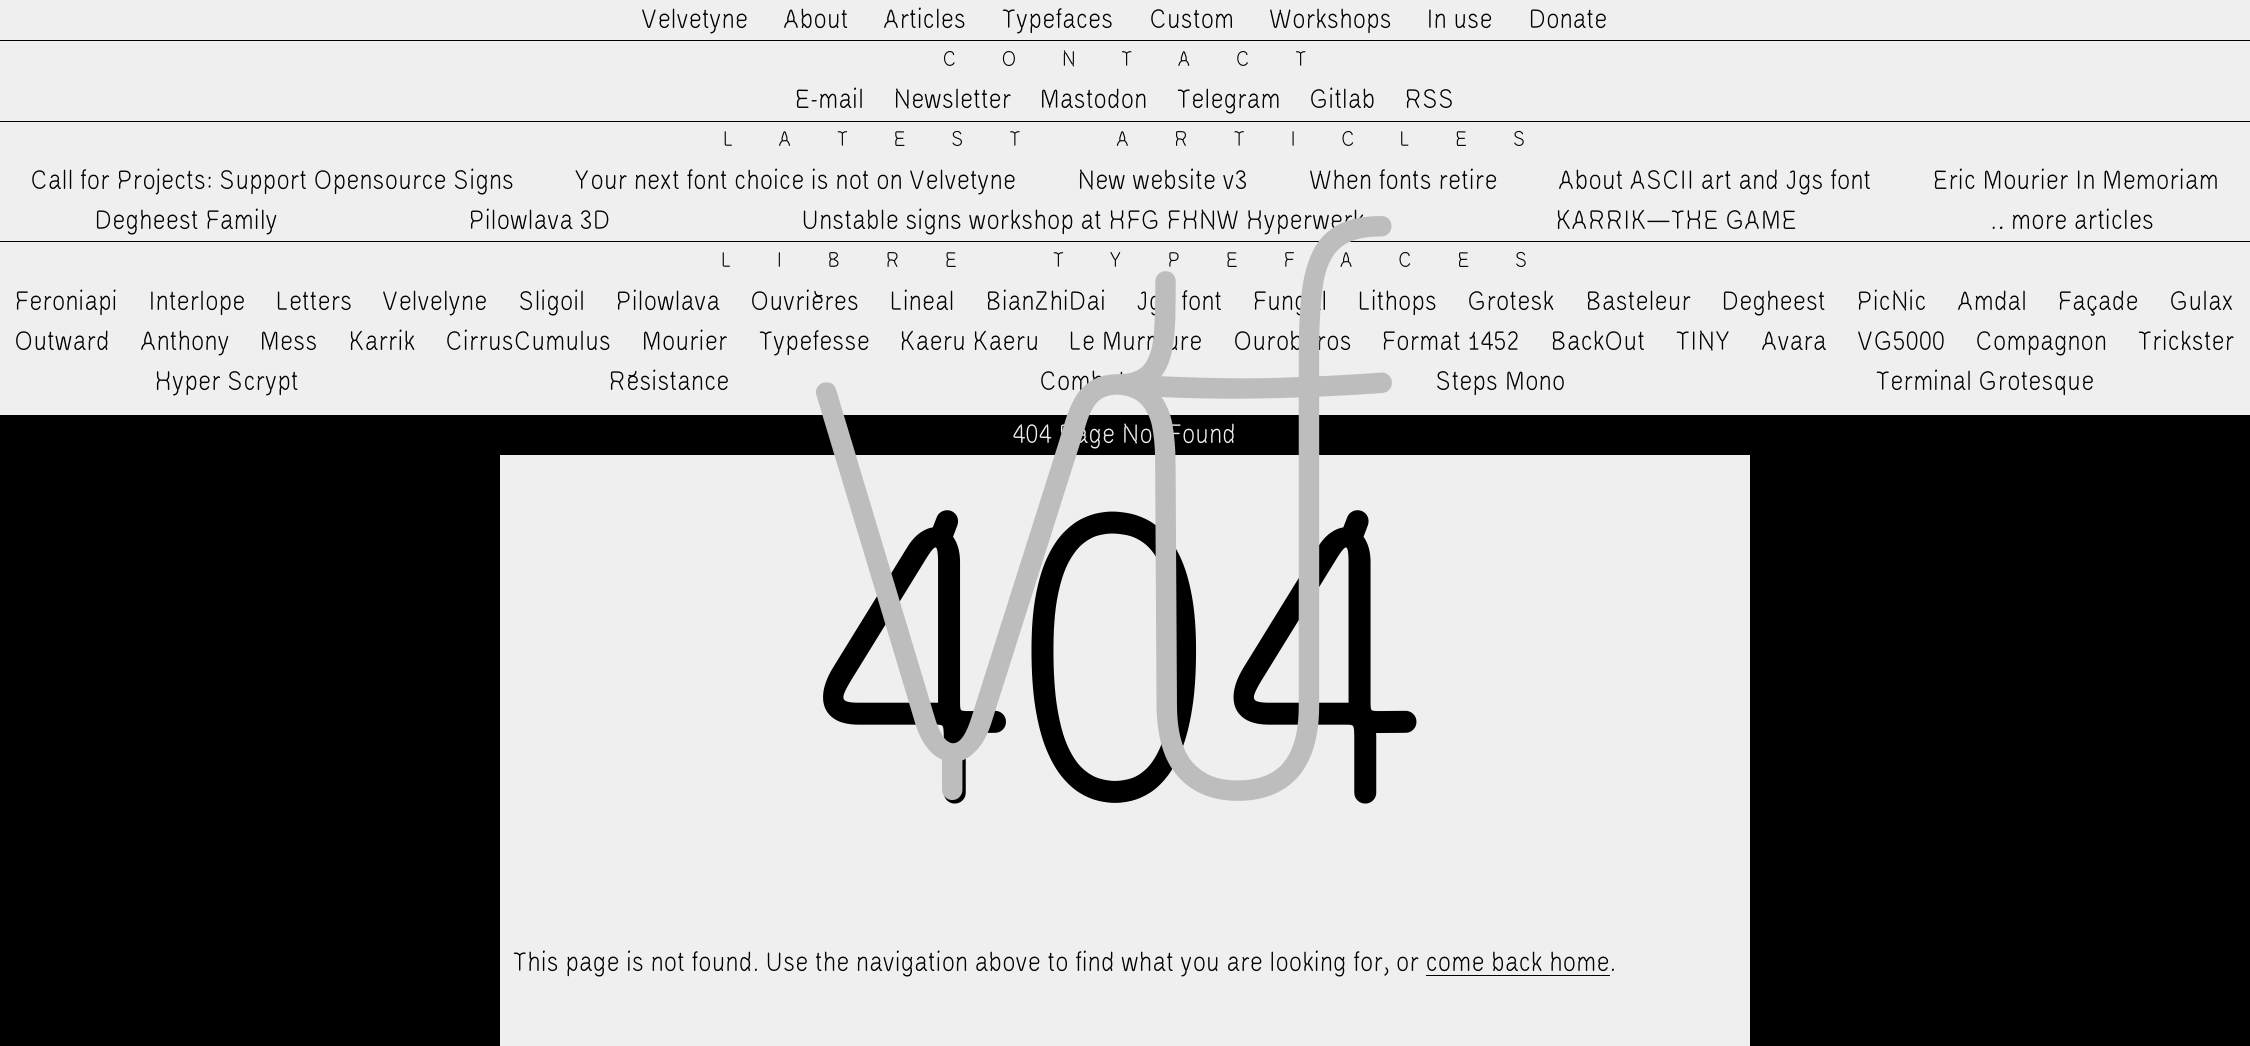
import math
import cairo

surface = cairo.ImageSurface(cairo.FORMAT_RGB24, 2250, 1046)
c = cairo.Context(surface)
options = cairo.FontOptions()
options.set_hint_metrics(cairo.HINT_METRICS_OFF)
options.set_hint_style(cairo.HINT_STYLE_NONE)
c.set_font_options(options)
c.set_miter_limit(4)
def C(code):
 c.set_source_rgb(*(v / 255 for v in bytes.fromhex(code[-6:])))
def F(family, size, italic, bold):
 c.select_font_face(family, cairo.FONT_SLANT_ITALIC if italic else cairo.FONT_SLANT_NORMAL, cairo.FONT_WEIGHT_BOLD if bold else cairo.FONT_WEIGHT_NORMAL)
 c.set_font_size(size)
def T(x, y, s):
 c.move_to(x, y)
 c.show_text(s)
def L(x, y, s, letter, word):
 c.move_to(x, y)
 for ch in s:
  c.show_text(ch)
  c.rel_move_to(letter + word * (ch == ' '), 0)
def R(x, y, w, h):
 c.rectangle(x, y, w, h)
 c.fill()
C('efefef')
c.paint()
F('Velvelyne',28.75,0,0)
C('000000')
T(642,28,'Velvetyne')
T(784,28,'About')
T(884,28,'Articles')
T(1002,28,'Typefaces')
T(1150,28,'Custom')
T(1270,28,'Workshops')
T(1427,28,'In use')
T(1529,28,'Donate')
R(0,40,2250,1)
F('Velvelyne',23,0,0)
L(943,66,'CONTACT',45,0)
F('Velvelyne',28.75,0,0)
T(795,108,'E-mail')
T(894,108,'Newsletter')
T(1040,108,'Mastodon')
T(1177,108,'Telegram')
T(1310,108,'Gitlab')
T(1405,108,'RSS')
R(0,121,2250,1)
F('Velvelyne',23,0,0)
L(724,146,'LATEST ARTICLES',45,0)
F('Velvelyne',28.75,0,0)
T(31,189,'Call for Projects: Support Opensource Signs')
T(575,189,'Your next font choice is not on Velvetyne')
T(1078,189,'New website v3')
T(1310,189,'When fonts retire')
T(1559,189,'About ASCII art and Jgs font')
T(1933,189,'Eric Mourier In Memoriam')
T(95,229,'Degheest Family')
T(469,229,'Pilowlava 3D')
T(802,229,'Unstable signs workshop at HFG FHNW Hyperwerk')
T(1556,229,'KARRIK—THE GAME')
T(1988,229,'…more articles')
R(0,241,2250,1)
F('Velvelyne',23,0,0)
L(722,267,'LIBRE TYPEFACES',45,0)
F('Velvelyne',28.75,0,0)
T(15,310,'Feroniapi')
T(149,310,'Interlope')
T(277,310,'Letters')
T(383,310,'Velvelyne')
T(519,310,'Sligoil')
T(616,310,'Pilowlava')
T(751,310,'Ouvrières')
T(891,310,'Lineal')
T(986,310,'BianZhiDai')
T(1137,310,'Jgs font')
T(1253,310,'Fungal')
T(1359,310,'Lithops')
T(1468,310,'Grotesk')
T(1586,310,'Basteleur')
T(1722,310,'Degheest')
T(1857,310,'PicNic')
T(1958,310,'Amdal')
T(2058,310,'Façade')
T(2170,310,'Gulax')
T(15,350,'Outward')
T(141,350,'Anthony')
T(260,350,'Mess')
T(349,350,'Karrik')
T(446,350,'CirrusCumulus')
T(642,350,'Mourier')
T(759,350,'Typefesse')
T(900,350,'Kaeru Kaeru')
T(1070,350,'Le Murmure')
T(1234,350,'Ouroboros')
T(1382,350,'Format 1452')
T(1551,350,'BackOut')
T(1676,350,'TINY')
T(1762,350,'Avara')
T(1858,350,'VG5000')
T(1976,350,'Compagnon')
T(2138,350,'Trickster')
T(155,390,'Hyper Scrypt')
T(609,390,'Résistance')
T(1040,390,'Combat')
T(1436,390,'Steps Mono')
T(1876,390,'Terminal Grotesque')
R(0,415,2250,631)
C('efefef')
T(1013,443,'404 Page Not Found')
R(500,455,1250,591)
F('Velvelyne',450,0,0)
C('000000')
T(817,804,'404')
F('Velvelyne Light',837,0,0)
C('bdbdbd')
T(774,780,'☣')
F('Velvelyne',28.75,0,0)
C('000000')
T(513,971,'This page is not found. Use the navigation above to find what you are looking for, or come back home.')
R(1426,975,184,1)
surface.write_to_png('o.png')
